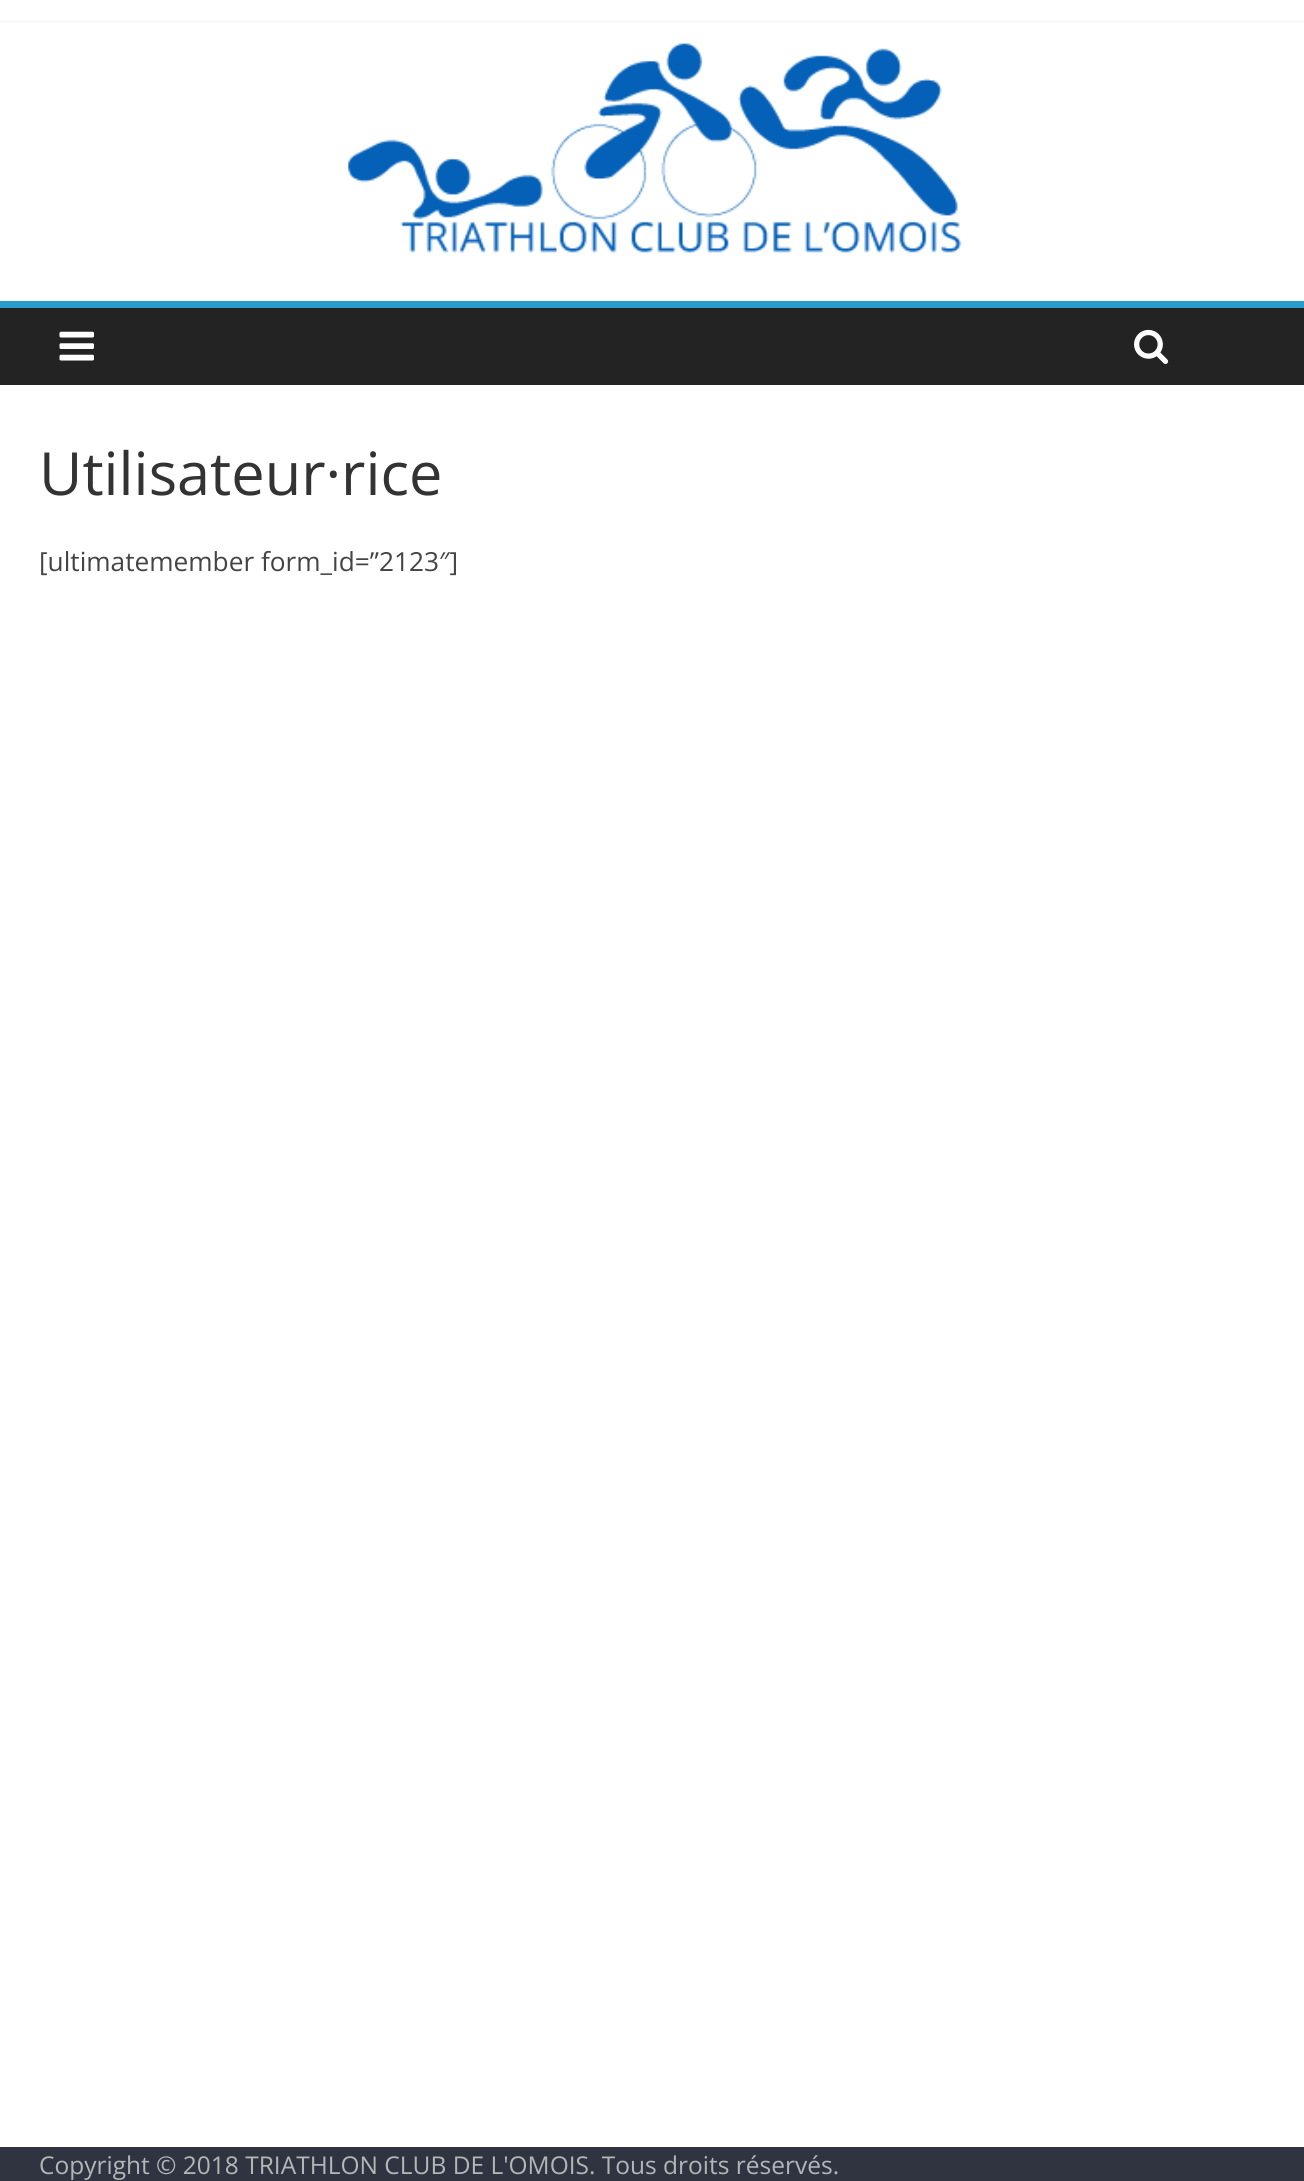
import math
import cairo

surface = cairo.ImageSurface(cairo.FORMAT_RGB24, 1304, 2181)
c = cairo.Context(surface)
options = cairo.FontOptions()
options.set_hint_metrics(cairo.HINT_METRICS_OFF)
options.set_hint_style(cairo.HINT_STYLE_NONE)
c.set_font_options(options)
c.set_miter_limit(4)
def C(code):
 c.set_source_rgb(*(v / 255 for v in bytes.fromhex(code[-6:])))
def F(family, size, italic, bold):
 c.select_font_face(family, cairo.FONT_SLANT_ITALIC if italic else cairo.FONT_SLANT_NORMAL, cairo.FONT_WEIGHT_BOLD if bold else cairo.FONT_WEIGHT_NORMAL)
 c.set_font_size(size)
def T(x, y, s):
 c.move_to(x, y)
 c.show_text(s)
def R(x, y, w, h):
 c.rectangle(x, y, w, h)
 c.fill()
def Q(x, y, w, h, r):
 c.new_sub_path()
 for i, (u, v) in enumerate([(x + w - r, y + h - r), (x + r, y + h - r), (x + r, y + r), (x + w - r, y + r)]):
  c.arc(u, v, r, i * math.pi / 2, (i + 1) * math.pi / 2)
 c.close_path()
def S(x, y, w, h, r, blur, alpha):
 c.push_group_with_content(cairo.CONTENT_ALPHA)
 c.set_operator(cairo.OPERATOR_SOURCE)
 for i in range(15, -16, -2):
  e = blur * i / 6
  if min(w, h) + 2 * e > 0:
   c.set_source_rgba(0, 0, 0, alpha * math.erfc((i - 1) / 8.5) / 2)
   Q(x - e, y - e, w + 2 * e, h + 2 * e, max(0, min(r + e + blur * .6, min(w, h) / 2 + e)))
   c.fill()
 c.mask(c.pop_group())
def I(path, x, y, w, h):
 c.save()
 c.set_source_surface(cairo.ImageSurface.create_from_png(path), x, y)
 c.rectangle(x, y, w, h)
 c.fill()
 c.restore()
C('ffffff')
c.paint()
c.save()
c.rectangle(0,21,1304,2)
c.clip()
C('000000')
S(0,0,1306,21,0,2,.1)
c.restore()
I('1.png',347,43,615,210)
C('232323')
R(0,308,1304,77)
C('289dcc')
R(0,301,1304,7)
I('2.png',59,331,35,30)
I('3.png',1134,329,35,35)
F('Open Sans',59.5,0,0)
C('333333')
T(39,495,'Utilisateur·rice')
F('Open Sans',26.25,0,0)
C('444444')
T(39,571,'[ultimatemember form_id=”2123″]')
C('303440')
R(0,2147,1304,34)
F('Open Sans',24.5,0,0)
C('b1b6b6')
T(39,2174,'Copyright © 2018 TRIATHLON CLUB DE L\'OMOIS. Tous droits réservés.')
surface.write_to_png('o.png')
